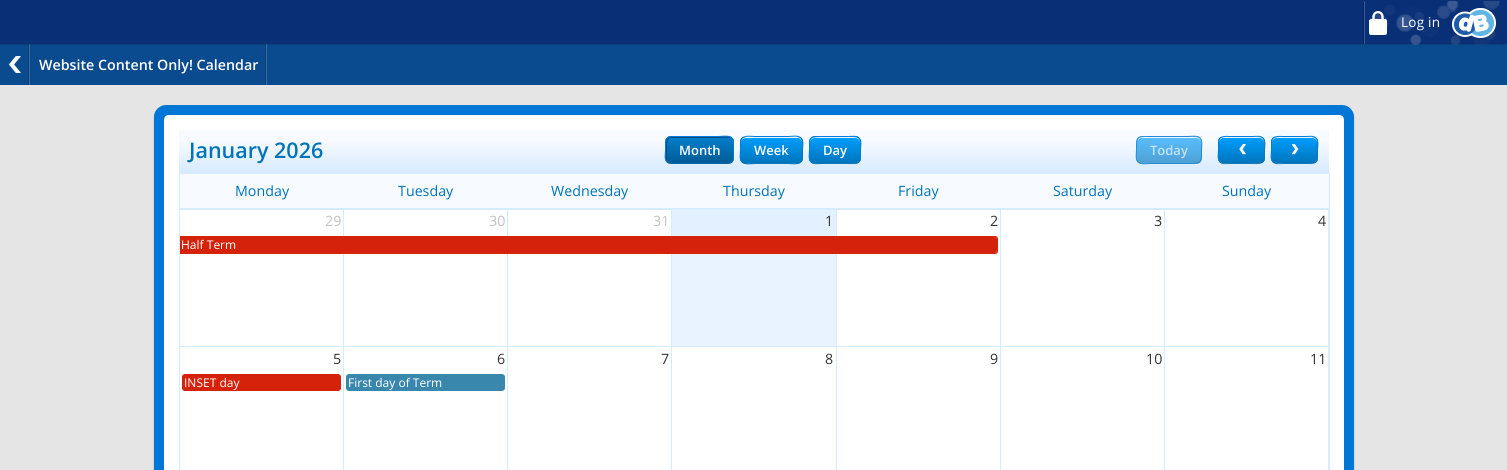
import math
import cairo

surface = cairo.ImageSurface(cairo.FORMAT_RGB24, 1507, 470)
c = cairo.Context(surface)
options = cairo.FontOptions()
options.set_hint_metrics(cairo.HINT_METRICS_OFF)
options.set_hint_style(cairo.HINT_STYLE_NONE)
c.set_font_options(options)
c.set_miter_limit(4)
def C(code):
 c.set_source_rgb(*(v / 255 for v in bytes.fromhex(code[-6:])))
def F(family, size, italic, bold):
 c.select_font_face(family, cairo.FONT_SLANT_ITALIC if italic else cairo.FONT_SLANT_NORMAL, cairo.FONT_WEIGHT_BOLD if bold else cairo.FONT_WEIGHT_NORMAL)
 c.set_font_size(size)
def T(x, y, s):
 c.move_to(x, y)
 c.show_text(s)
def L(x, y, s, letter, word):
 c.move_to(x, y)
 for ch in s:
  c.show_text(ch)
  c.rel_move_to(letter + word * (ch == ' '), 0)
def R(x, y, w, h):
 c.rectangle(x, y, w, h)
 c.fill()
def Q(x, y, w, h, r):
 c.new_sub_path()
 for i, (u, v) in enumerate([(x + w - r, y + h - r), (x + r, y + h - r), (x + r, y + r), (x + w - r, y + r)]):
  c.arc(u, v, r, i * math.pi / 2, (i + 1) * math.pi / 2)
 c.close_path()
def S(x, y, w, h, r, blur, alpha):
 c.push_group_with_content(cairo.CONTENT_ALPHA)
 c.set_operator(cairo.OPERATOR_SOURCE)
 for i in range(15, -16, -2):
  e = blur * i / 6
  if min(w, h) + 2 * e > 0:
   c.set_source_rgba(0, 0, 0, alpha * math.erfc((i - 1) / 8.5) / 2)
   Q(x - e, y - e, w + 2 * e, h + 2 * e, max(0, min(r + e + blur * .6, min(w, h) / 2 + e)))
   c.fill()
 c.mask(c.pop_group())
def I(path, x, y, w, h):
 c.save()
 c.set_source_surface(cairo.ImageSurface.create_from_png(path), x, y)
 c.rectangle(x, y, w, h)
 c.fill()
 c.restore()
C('e5e5e5')
c.paint()
C('0a4b8f')
R(0,44,1507,41)
I('4.png',265,44,2,41)
I('4.png',28,44,2,41)
C('000000')
S(0,1,1507,44,0,.5,.15)
C('093077')
R(0,0,1507,44)
I('1.png',1369,1,131,44)
I('2.png',1363,1,2,43)
I('3.png',1369,11,18,24)
F('Open Sans',13.5,0,0)
C('ffffff')
L(1401,27,'Log in',.25,0)
C('000000')
S(154,106,1200,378,12,.5,.25)
C('0077d7')
c.new_path()
c.move_to(166,105)
c.line_to(1342,105)
c.curve_to(1348.5,105,1354,110.5,1354,117)
c.line_to(1354,470)
c.line_to(154,470)
c.line_to(154,117)
c.curve_to(154,110.5,159.5,105,166,105)
c.close_path()
c.fill()
C('ffffff')
c.new_path()
c.move_to(169,115)
c.line_to(1339,115)
c.curve_to(1342,115,1344,117,1344,120)
c.line_to(1344,470)
c.line_to(164,470)
c.line_to(164,120)
c.curve_to(164,117,166,115,169,115)
c.close_path()
c.fill()
I('5.png',9,56,12,17)
F('Open Sans SemiBold',14.25,0,0)
T(39,70,'Website Content Only! Calendar')
gradient = cairo.LinearGradient(754,130,754,173)
gradient.add_color_stop_rgba(.25,0.969,0.98,1,1)
gradient.add_color_stop_rgba(1,0.839,0.918,1,1)
c.set_source(gradient)
R(179,130,1150,43)
F('Open Sans SemiBold',21.5,0,0)
C('0074ba')
T(189,158,'January 2026')
c.save()
Q(665,136,69,28,6)
c.clip()
gradient = cairo.LinearGradient(700,111,700,137)
gradient.add_color_stop_rgba(0,0,0.494,0.8,1)
gradient.add_color_stop_rgba(1,0,0.361,0.588,1)
c.set_source(gradient)
R(665,136,69,1)
gradient = cairo.LinearGradient(700,137,700,163)
gradient.add_color_stop_rgba(0,0,0.494,0.8,1)
gradient.add_color_stop_rgba(1,0,0.361,0.588,1)
c.set_source(gradient)
R(665,137,69,26)
c.restore()
C('004b81')
c.new_path()
c.move_to(672,138)
c.line_to(729,138)
c.line_to(732,139)
c.curve_to(731,138,729,137,728,137)
c.line_to(671,137)
c.curve_to(668,137,666,139,666,142)
c.line_to(666,158)
c.curve_to(666,159,667,161,668,162)
c.curve_to(666,159,667,154,667,151)
c.curve_to(667,147,665,138,672,138)
c.close_path()
c.fill()
c.new_path()
c.move_to(732,138)
c.curve_to(733,139,733.5,140.5,733.5,142)
c.line_to(733.5,158)
c.curve_to(733.5,159.5,733,161,732,162)
C('0f77b7')
c.set_line_width(1)
c.stroke()
c.new_path()
c.move_to(732,162)
c.curve_to(731,163,729.5,163.5,728,163.5)
c.line_to(671,163.5)
c.curve_to(669.5,163.5,668,163,667,162)
C('006cae')
c.stroke()
c.new_path()
c.move_to(667,162)
c.curve_to(664,159,665.5,153.5,665.5,150)
c.curve_to(665.5,135.5,665.5,136.5,680.5,136.5)
c.line_to(718.5,136.5)
c.curve_to(721,136.5,729,135,732,138)
C('057cdc')
c.stroke()
F('Open Sans SemiBold',13,0,0)
C('ffffff')
T(679,155,'Month')
c.save()
Q(740,136,63,28,6)
c.clip()
gradient = cairo.LinearGradient(772,137,772,163)
gradient.add_color_stop_rgba(0,0,0.62,1,1)
gradient.add_color_stop_rgba(1,0,0.459,0.737,1)
c.set_source(gradient)
R(740,137,63,26)
gradient = cairo.LinearGradient(772,163,772,189)
gradient.add_color_stop_rgba(0,0,0.62,1,1)
gradient.add_color_stop_rgba(1,0,0.459,0.737,1)
c.set_source(gradient)
R(740,163,63,1)
c.restore()
C('e6f5ff')
c.new_path()
c.move_to(746,138)
c.line_to(797,138)
c.curve_to(800,138,802,140,802,143)
c.curve_to(802,135,794,137,788,137)
c.line_to(754,137)
c.curve_to(749,137,741,135,741,143)
c.curve_to(741,140,743,138,746,138)
c.close_path()
c.fill()
c.new_path()
c.move_to(801,138)
c.curve_to(804,141,802.5,146.5,802.5,150)
c.line_to(802.5,159)
c.curve_to(801,165.5,792.5,163.5,788.5,163.5)
c.line_to(754.5,163.5)
c.curve_to(751.5,163.5,745,165,742,162)
C('0f77b7')
c.stroke()
c.new_path()
c.move_to(742,162)
c.curve_to(739,159,740.5,153.5,740.5,150)
c.line_to(740.5,141)
c.curve_to(742,134.5,750.5,136.5,754.5,136.5)
c.line_to(788.5,136.5)
c.curve_to(791.5,136.5,798,135,801,138)
C('057cdc')
c.stroke()
C('ffffff')
T(754,155,'Week')
c.save()
Q(809,136,52,28,6)
c.clip()
gradient = cairo.LinearGradient(835,111,835,137)
gradient.add_color_stop_rgba(0,0,0.62,1,1)
gradient.add_color_stop_rgba(1,0,0.459,0.737,1)
c.set_source(gradient)
R(809,136,52,1)
gradient = cairo.LinearGradient(835,137,835,163)
gradient.add_color_stop_rgba(0,0,0.62,1,1)
gradient.add_color_stop_rgba(1,0,0.459,0.737,1)
c.set_source(gradient)
R(809,137,52,26)
gradient = cairo.LinearGradient(835,163,835,189)
gradient.add_color_stop_rgba(0,0,0.62,1,1)
gradient.add_color_stop_rgba(1,0,0.459,0.737,1)
c.set_source(gradient)
R(809,163,52,1)
c.restore()
C('e6f5ff')
c.new_path()
c.move_to(815,138)
c.line_to(855,138)
c.curve_to(858,138,860,140,860,143)
c.curve_to(860,136,854,137,848,137)
c.line_to(822,137)
c.curve_to(816,137,810,136,810,143)
c.curve_to(810,140,812,138,815,138)
c.close_path()
c.fill()
c.new_path()
c.move_to(859,138)
c.curve_to(862,141,860.5,146.5,860.5,150)
c.curve_to(860.5,162.5,861.5,163.5,848.5,163.5)
c.line_to(821.5,163.5)
c.curve_to(818.5,163.5,813.5,164.5,811,162)
C('0f77b7')
c.stroke()
c.new_path()
c.move_to(811,162)
c.curve_to(808,159,809.5,153.5,809.5,150)
c.curve_to(809.5,137.5,808.5,136.5,821.5,136.5)
c.line_to(848.5,136.5)
c.curve_to(851.5,136.5,856.5,135.5,859,138)
C('057cdc')
c.stroke()
C('ffffff')
T(823,155,'Day')
c.save()
Q(1136,136,66,28,6)
c.clip()
gradient = cairo.LinearGradient(1169,111,1169,137)
gradient.add_color_stop_rgba(0,0.337,0.745,1,1)
gradient.add_color_stop_rgba(1,0.337,0.643,0.827,1)
c.set_source(gradient)
R(1136,136,66,1)
gradient = cairo.LinearGradient(1169,137,1169,163)
gradient.add_color_stop_rgba(0,0,0.62,1,.65)
gradient.add_color_stop_rgba(1,0,0.459,0.737,.65)
c.set_source(gradient)
R(1136,137,66,26)
gradient = cairo.LinearGradient(1169,163,1169,189)
gradient.add_color_stop_rgba(0,0.306,0.729,1,1)
gradient.add_color_stop_rgba(1,0.306,0.627,0.827,1)
c.set_source(gradient)
R(1136,163,66,1)
c.restore()
C('ecf7ff')
c.new_path()
c.move_to(1142,138)
c.line_to(1196,138)
c.curve_to(1199,138,1201,140,1201,143)
c.curve_to(1201,135,1193,137,1187,137)
c.line_to(1151,137)
c.curve_to(1145,137,1137,135,1137,143)
c.curve_to(1137,140,1139,138,1142,138)
c.close_path()
c.fill()
c.new_path()
c.move_to(1200,138)
c.curve_to(1203,141,1201.5,146.5,1201.5,150)
c.curve_to(1201.5,164,1201.5,163.5,1187,163.5)
c.line_to(1151,163.5)
c.curve_to(1148,163.5,1141,165,1138,162)
c.set_source_rgba(0.059,0.467,0.718,0.65)
c.stroke()
c.new_path()
c.move_to(1138,162)
c.curve_to(1135,159,1136.5,153.5,1136.5,150)
c.curve_to(1136.5,136,1136.5,136.5,1151,136.5)
c.line_to(1187,136.5)
c.curve_to(1190,136.5,1197,135,1200,138)
c.set_source_rgba(0.02,0.486,0.863,0.65)
c.stroke()
C('c3e3f7')
T(1150,155,'Today')
c.save()
Q(1218,136,47,28,6)
c.clip()
gradient = cairo.LinearGradient(1242,137,1242,163)
gradient.add_color_stop_rgba(0,0,0.62,1,1)
gradient.add_color_stop_rgba(1,0,0.459,0.737,1)
c.set_source(gradient)
R(1218,137,47,26)
c.restore()
C('e6f5ff')
c.new_path()
c.move_to(1224,138)
c.line_to(1259,138)
c.curve_to(1262,138,1264,140,1264,143)
c.curve_to(1264,136,1259,137,1253,137)
c.line_to(1230,137)
c.curve_to(1224,137,1219,136,1219,143)
c.curve_to(1219,140,1221,138,1224,138)
c.close_path()
c.fill()
c.new_path()
c.move_to(1263,138)
c.curve_to(1266,141,1264.5,146.5,1264.5,150)
c.line_to(1264.5,159)
c.curve_to(1263.5,164.5,1257,163.5,1253,163.5)
c.line_to(1230,163.5)
c.curve_to(1227,163.5,1222.5,164.5,1220,162)
C('0f77b7')
c.stroke()
c.new_path()
c.move_to(1220,162)
c.curve_to(1217,159,1218.5,153.5,1218.5,150)
c.line_to(1218.5,141)
c.curve_to(1219.5,135.5,1226,136.5,1230,136.5)
c.line_to(1253,136.5)
c.curve_to(1256,136.5,1260.5,135.5,1263,138)
C('057cdc')
c.stroke()
c.save()
c.rectangle(1235,144,13,13)
c.clip()
F('Liberation Mono',26,0,1)
C('ffffff')
T(1235,156,'‹')
c.restore()
c.save()
Q(1271,136,47,28,6)
c.clip()
gradient = cairo.LinearGradient(1295,137,1295,163)
gradient.add_color_stop_rgba(0,0,0.62,1,1)
gradient.add_color_stop_rgba(1,0,0.459,0.737,1)
c.set_source(gradient)
R(1271,137,47,26)
c.restore()
C('e6f5ff')
c.new_path()
c.move_to(1277,138)
c.line_to(1312,138)
c.curve_to(1315,138,1317,140,1317,143)
c.curve_to(1317,136,1312,137,1306,137)
c.line_to(1283,137)
c.curve_to(1277,137,1272,136,1272,143)
c.curve_to(1272,140,1274,138,1277,138)
c.close_path()
c.fill()
c.new_path()
c.move_to(1316,138)
c.curve_to(1319,141,1317.5,146.5,1317.5,150)
c.line_to(1317.5,159)
c.curve_to(1316.5,164.5,1310,163.5,1306,163.5)
c.line_to(1283,163.5)
c.curve_to(1280,163.5,1275.5,164.5,1273,162)
C('0f77b7')
c.stroke()
c.new_path()
c.move_to(1273,162)
c.curve_to(1270,159,1271.5,153.5,1271.5,150)
c.line_to(1271.5,141)
c.curve_to(1272.5,135.5,1279,136.5,1283,136.5)
c.line_to(1306,136.5)
c.curve_to(1309,136.5,1313.5,135.5,1316,138)
C('057cdc')
c.stroke()
c.save()
c.rectangle(1288,144,13,13)
c.clip()
F('Liberation Mono',26,0,1)
C('ffffff')
T(1287,156,'›')
c.restore()
C('f7faff')
R(180,174,1149,34)
C('d3edfe')
R(179,173,1151,1)
R(179,208,1151,1)
R(1329,208,1,262)
R(1329,173,1,36)
R(179,208,1,262)
R(179,173,1,36)
F('Open Sans',14.25,0,0)
C('0074ba')
T(235,196,'Monday')
T(398,196,'Tuesday')
T(551,196,'Wednesday')
T(723,196,'Thursday')
T(898,196,'Friday')
T(1053,196,'Saturday')
T(1222,196,'Sunday')
C('d3edfe')
R(1164,209,165,1)
R(1328,209,1,138)
R(1164,346,165,1)
R(1164,209,1,138)
R(1000,346,165,1)
R(1000,209,165,1)
R(1000,209,1,138)
R(836,346,165,1)
R(836,209,165,1)
R(836,209,1,138)
R(671,346,166,1)
R(671,209,1,138)
R(507,209,165,1)
R(507,346,165,1)
R(507,209,1,138)
R(343,209,165,1)
R(343,346,165,1)
R(343,209,1,138)
R(179,209,165,1)
R(179,346,165,1)
C('e9f3ff')
R(672,235,164,111)
C('e2f0ff')
R(672,210,164,25)
C('dbeeff')
R(672,209,164,1)
C('c2c2c2')
T(325,226,'29')
T(489,226,'30')
T(653,226,'31')
C('333333')
T(825,226,'1')
T(990,226,'2')
T(1154,226,'3')
T(1318,226,'4')
C('d5220b')
c.new_path()
c.move_to(180,237)
c.line_to(995,237)
c.curve_to(996,237,997,238,997,239)
c.line_to(997,251)
c.curve_to(997,252,996,253,995,253)
c.line_to(180,253)
c.close_path()
c.fill()
c.set_fill_rule(cairo.FILL_RULE_EVEN_ODD)
c.new_path()
c.move_to(180,236)
c.line_to(995,236)
c.curve_to(997,236,998,237,998,239)
c.line_to(998,251)
c.curve_to(998,253,997,254,995,254)
c.line_to(180,254)
c.close_path()
c.move_to(180,237)
c.line_to(995,237)
c.curve_to(996,237,997,238,997,239)
c.line_to(997,251)
c.curve_to(997,252,996,253,995,253)
c.line_to(180,253)
c.close_path()
c.fill()
F('Open Sans',12,0,0)
C('ffffff')
T(181,249,'Half Term')
C('d3edfe')
R(343,346,1,124)
R(507,346,1,124)
R(671,346,1,124)
R(836,346,1,124)
R(1000,346,1,124)
R(1328,346,1,124)
R(1164,346,1,124)
F('Open Sans',14.25,0,0)
C('333333')
T(333,364,'5')
T(497,364,'6')
T(661,364,'7')
T(825,364,'8')
T(990,364,'9')
T(1146,364,'10')
T(1310,364,'11')
C('d5220b')
Q(182.5,374.5,158,16,2.5)
c.fill_preserve()
c.stroke()
F('Open Sans',12,0,0)
C('ffffff')
T(184,387,'INSET day')
C('3a87ad')
Q(346.5,374.5,158,16,2.5)
c.fill_preserve()
c.stroke()
C('ffffff')
T(348,387,'First day of Term')
surface.write_to_png('o.png')
